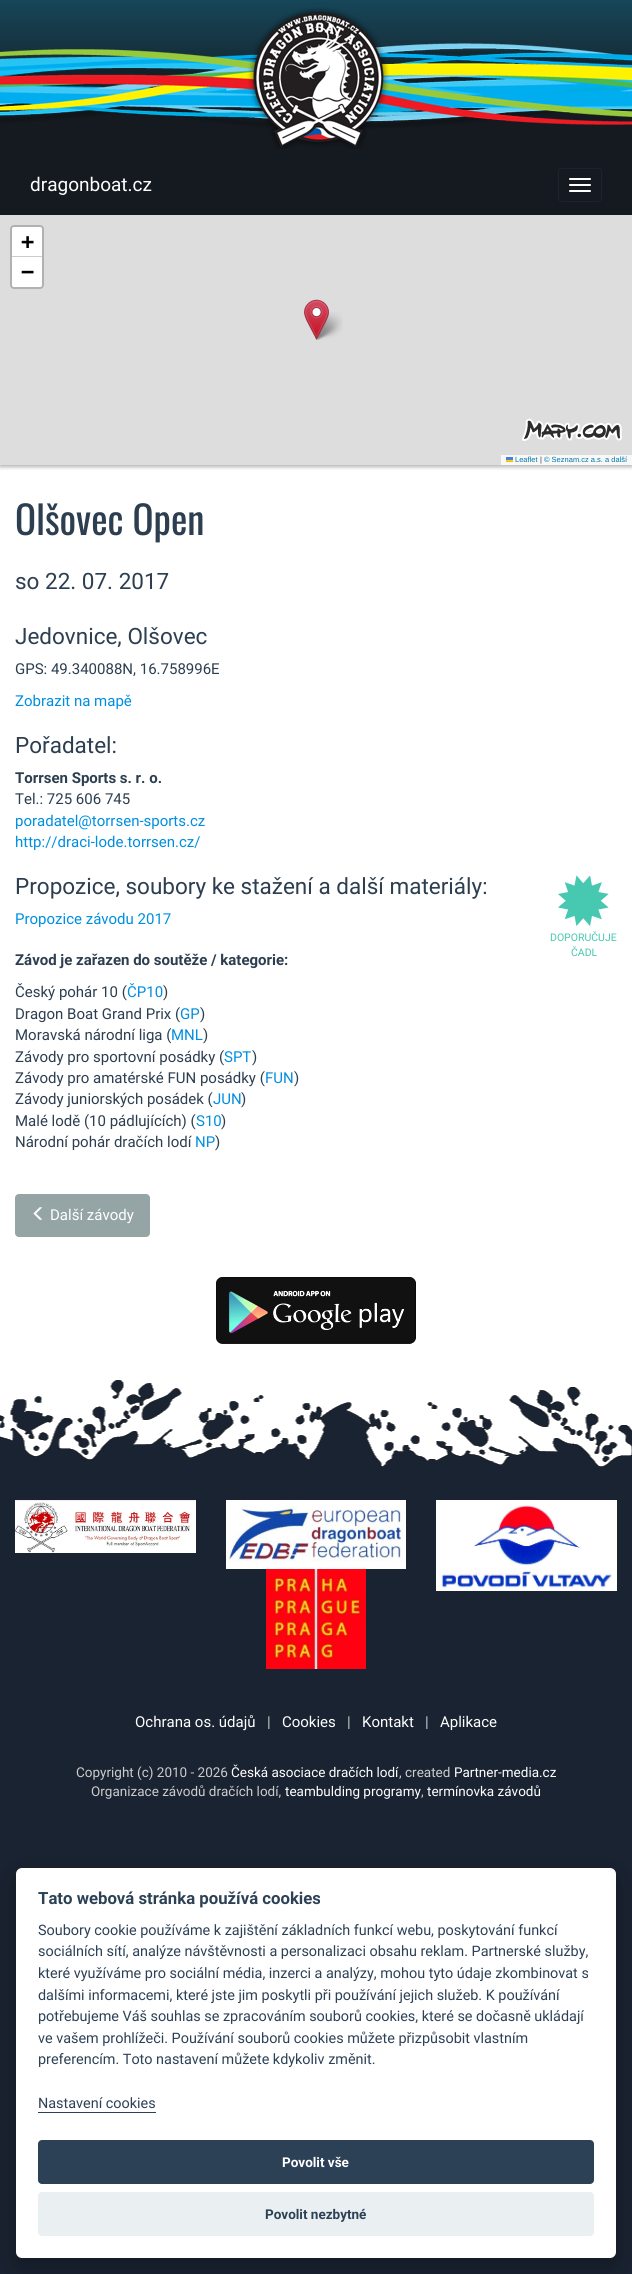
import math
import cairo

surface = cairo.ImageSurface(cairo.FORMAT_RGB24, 632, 2274)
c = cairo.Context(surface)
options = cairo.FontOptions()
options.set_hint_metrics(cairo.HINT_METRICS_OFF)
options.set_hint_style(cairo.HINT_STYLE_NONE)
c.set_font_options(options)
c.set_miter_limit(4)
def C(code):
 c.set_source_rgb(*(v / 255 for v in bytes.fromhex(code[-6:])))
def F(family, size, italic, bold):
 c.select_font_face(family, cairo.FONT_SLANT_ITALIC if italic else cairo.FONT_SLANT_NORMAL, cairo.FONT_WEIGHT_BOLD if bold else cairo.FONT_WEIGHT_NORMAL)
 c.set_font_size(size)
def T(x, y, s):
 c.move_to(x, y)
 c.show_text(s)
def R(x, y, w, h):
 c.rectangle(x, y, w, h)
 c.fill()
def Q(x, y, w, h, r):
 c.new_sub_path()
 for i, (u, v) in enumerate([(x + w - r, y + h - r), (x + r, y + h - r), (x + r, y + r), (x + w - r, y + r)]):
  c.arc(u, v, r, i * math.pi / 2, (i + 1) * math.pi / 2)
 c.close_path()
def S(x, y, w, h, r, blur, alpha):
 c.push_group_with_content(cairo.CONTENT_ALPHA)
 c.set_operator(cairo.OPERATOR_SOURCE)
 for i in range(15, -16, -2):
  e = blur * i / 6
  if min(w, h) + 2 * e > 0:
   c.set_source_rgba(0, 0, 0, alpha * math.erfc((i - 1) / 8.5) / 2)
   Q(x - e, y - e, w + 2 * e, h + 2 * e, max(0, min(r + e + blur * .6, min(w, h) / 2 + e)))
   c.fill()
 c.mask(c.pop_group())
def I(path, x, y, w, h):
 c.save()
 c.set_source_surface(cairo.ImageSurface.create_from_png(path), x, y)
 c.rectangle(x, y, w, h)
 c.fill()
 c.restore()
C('1a2332')
c.paint()
gradient = cairo.LinearGradient(316,0,316,215)
gradient.add_color_stop_rgba(0,0.086,0.275,0.349,1)
gradient.add_color_stop_rgba(.5,0.082,0.102,0.125,1)
c.set_source(gradient)
R(0,0,632,215)
I('1.png',0,7,632,142)
F('Roboto',19,0,0)
C('ffffff')
T(30,191,'dragonboat.cz')
Q(558.5,168.5,43,33,3.5)
C('1a242f')
c.set_line_width(1)
c.stroke()
C('ffffff')
Q(569,178,22,2,1)
c.fill()
Q(569,184,22,2,1)
c.fill()
Q(569,190,22,2,1)
c.fill()
R(0,465,632,915)
C('000000')
S(0,217,632,250,0,2,.3)
C('dddddd')
R(0,215,632,250)
Q(11,226,32,62,3)
C('b1b1b1')
c.set_line_width(2)
c.stroke()
C('ffffff')
c.new_path()
c.move_to(14,227)
c.line_to(40,227)
c.curve_to(41,227,42,228,42,229)
c.line_to(42,257)
c.line_to(12,257)
c.line_to(12,229)
c.curve_to(12,228,13,227,14,227)
c.close_path()
c.fill()
C('cccccc')
R(12,256,30,1)
F('DejaVu Sans Mono',22,0,1)
C('000000')
T(21,249,'+')
C('ffffff')
c.new_path()
c.move_to(12,257)
c.line_to(42,257)
c.line_to(42,285)
c.curve_to(42,286,41,287,40,287)
c.line_to(14,287)
c.curve_to(13,287,12,286,12,285)
c.close_path()
c.fill()
C('000000')
T(21,279,'−')
I('2.png',522,418,100,23)
C('f8f8f8')
R(501,455,131,10)
I('3.png',506,457,7,5)
F('Liberation Sans',7.5,0,0)
C('0078a8')
T(515,462,'Leaflet')
C('333333')
T(540,462,'|')
C('0078a8')
T(544,462,'© Seznam.cz a.s. a další')
I('5.png',314,312,29,28)
I('4.png',304,299,25,41)
F('Oswald',39,0,0)
C('2c3e50')
T(15,535,'Olšovec Open')
F('Roboto',22.5,0,0)
T(15,589,'so 22. 07. 2017')
T(15,644,'Jedovnice, Olšovec')
F('Roboto',15,0,0)
T(15,674,'GPS: 49.340088N, 16.758996E')
C('008fe0')
T(15,706,'Zobrazit na mapě')
F('Roboto',22.5,0,0)
C('2c3e50')
T(15,753,'Pořadatel:')
F('Roboto',15,0,1)
T(15,783,'Torrsen Sports s. r. o.')
F('Roboto',15,0,0)
T(15,804,'Tel.: 725 606 745')
C('008fe0')
T(15,826,'poradatel@torrsen-sports.cz')
T(15,847,'http://draci-lode.torrsen.cz/')
F('Roboto',22.5,0,0)
C('2c3e50')
T(15,894,'Propozice, soubory ke stažení a další materiály:')
F('Roboto',15,0,0)
C('008fe0')
T(15,924,'Propozice závodu 2017')
I('6.png',558,875,51,51)
F('Roboto',10.5,0,0)
C('47c8b1')
T(550,941,'DOPORUČUJE')
T(571,956,'ČADL')
F('Roboto',15,0,1)
C('2c3e50')
T(15,965,'Závod je zařazen do soutěže / kategorie:')
F('Roboto',15,0,0)
T(15,997,'Český pohár 10 (')
C('008fe0')
T(127,997,'ČP10')
C('2c3e50')
T(163,997,')')
T(15,1019,'Dragon Boat Grand Prix (')
C('008fe0')
T(180,1019,'GP')
C('2c3e50')
T(200,1019,')')
T(15,1040,'Moravská národní liga (')
C('008fe0')
T(171,1040,'MNL')
C('2c3e50')
T(203,1040,')')
T(15,1062,'Závody pro sportovní posádky (')
C('008fe0')
T(224,1062,'SPT')
C('2c3e50')
T(252,1062,')')
T(15,1083,'Závody pro amatérské FUN posádky (')
C('008fe0')
T(265,1083,'FUN')
C('2c3e50')
T(294,1083,')')
T(15,1104,'Závody juniorských posádek (')
C('008fe0')
T(213,1104,'JUN')
C('2c3e50')
T(241,1104,')')
T(15,1126,'Malé lodě (10 pádlujících) (')
C('008fe0')
T(196,1126,'S10')
C('2c3e50')
T(221,1126,')')
T(15,1147,'Národní pohár dračích lodí')
C('008fe0')
T(195,1147,'NP')
C('2c3e50')
T(215,1147,')')
C('95a5a6')
Q(15.5,1194.5,134,42,3.5)
c.fill_preserve()
c.set_line_width(1)
c.stroke()
I('7.png',33,1207,9,13)
C('ffffff')
T(50,1220,'Další závody')
I('8.png',216,1277,200,67)
I('9.png',0,1380,632,87)
I('10.png',15,1500,181,53)
I('11.png',226,1500,180,69)
I('12.png',266,1569,100,100)
I('13.png',436,1500,181,91)
T(135,1727,'Ochrana os. údajů')
C('cccccc')
T(267,1727,'|')
C('ffffff')
T(282,1727,'Cookies')
C('cccccc')
T(347,1727,'|')
C('ffffff')
T(362,1727,'Kontakt')
C('cccccc')
T(425,1727,'|')
C('ffffff')
T(440,1727,'Aplikace')
F('Roboto',13.5,0,0)
C('cccccc')
T(76,1777,'Copyright (c) 2010 - 2026')
C('ffffff')
T(231,1777,'Česká asociace dračích lodí')
C('cccccc')
T(399,1777,', created')
C('ffffff')
T(454,1777,'Partner-media.cz')
C('cccccc')
T(91,1796,'Organizace závodů dračích lodí,')
C('ffffff')
T(285,1796,'teambulding programy')
C('cccccc')
T(421,1796,',')
C('ffffff')
T(427,1796,'termínovka závodů')
C('020203')
S(16,1878,600,390,6,15,.28)
C('ffffff')
Q(16,1868,600,390,6)
c.fill()
F('Roboto',16.75,0,1)
C('2d4156')
T(38,1904,'Tato webová stránka používá cookies')
F('Roboto',14.4,0,0)
T(38,1935,'Soubory cookie používáme k zajištění základních funkcí webu, poskytování funkcí')
T(38,1956,'sociálních sítí, analýze návštěvnosti a personalizaci obsahu reklam. Partnerské služby,')
T(38,1978,'které využíváme pro sociální média, inzerci a analýzy, mohou tyto údaje zkombinovat s')
T(38,2000,'dalšími informacemi, které jste jim poskytli při používání jejich služeb. K používání')
T(38,2021,'potřebujeme Váš souhlas se zpracováním souborů cookies, které se dočasně ukládají')
T(38,2043,'ve vašem prohlížeči. Používání souborů cookies můžete přizpůsobit vlastním')
T(38,2064,'preferencím. Toto nastavení můžete kdykoliv změnit.')
T(38,2108,'Nastavení cookies')
R(38,2112,118,1)
Q(38,2140,556,44,4)
c.fill()
F('Roboto',13.5,0,1)
C('ffffff')
T(282,2167,'Povolit vše')
C('eaeff2')
Q(38,2192,556,44,4)
c.fill()
C('2d4156')
T(265,2219,'Povolit nezbytné')
surface.write_to_png('o.png')
